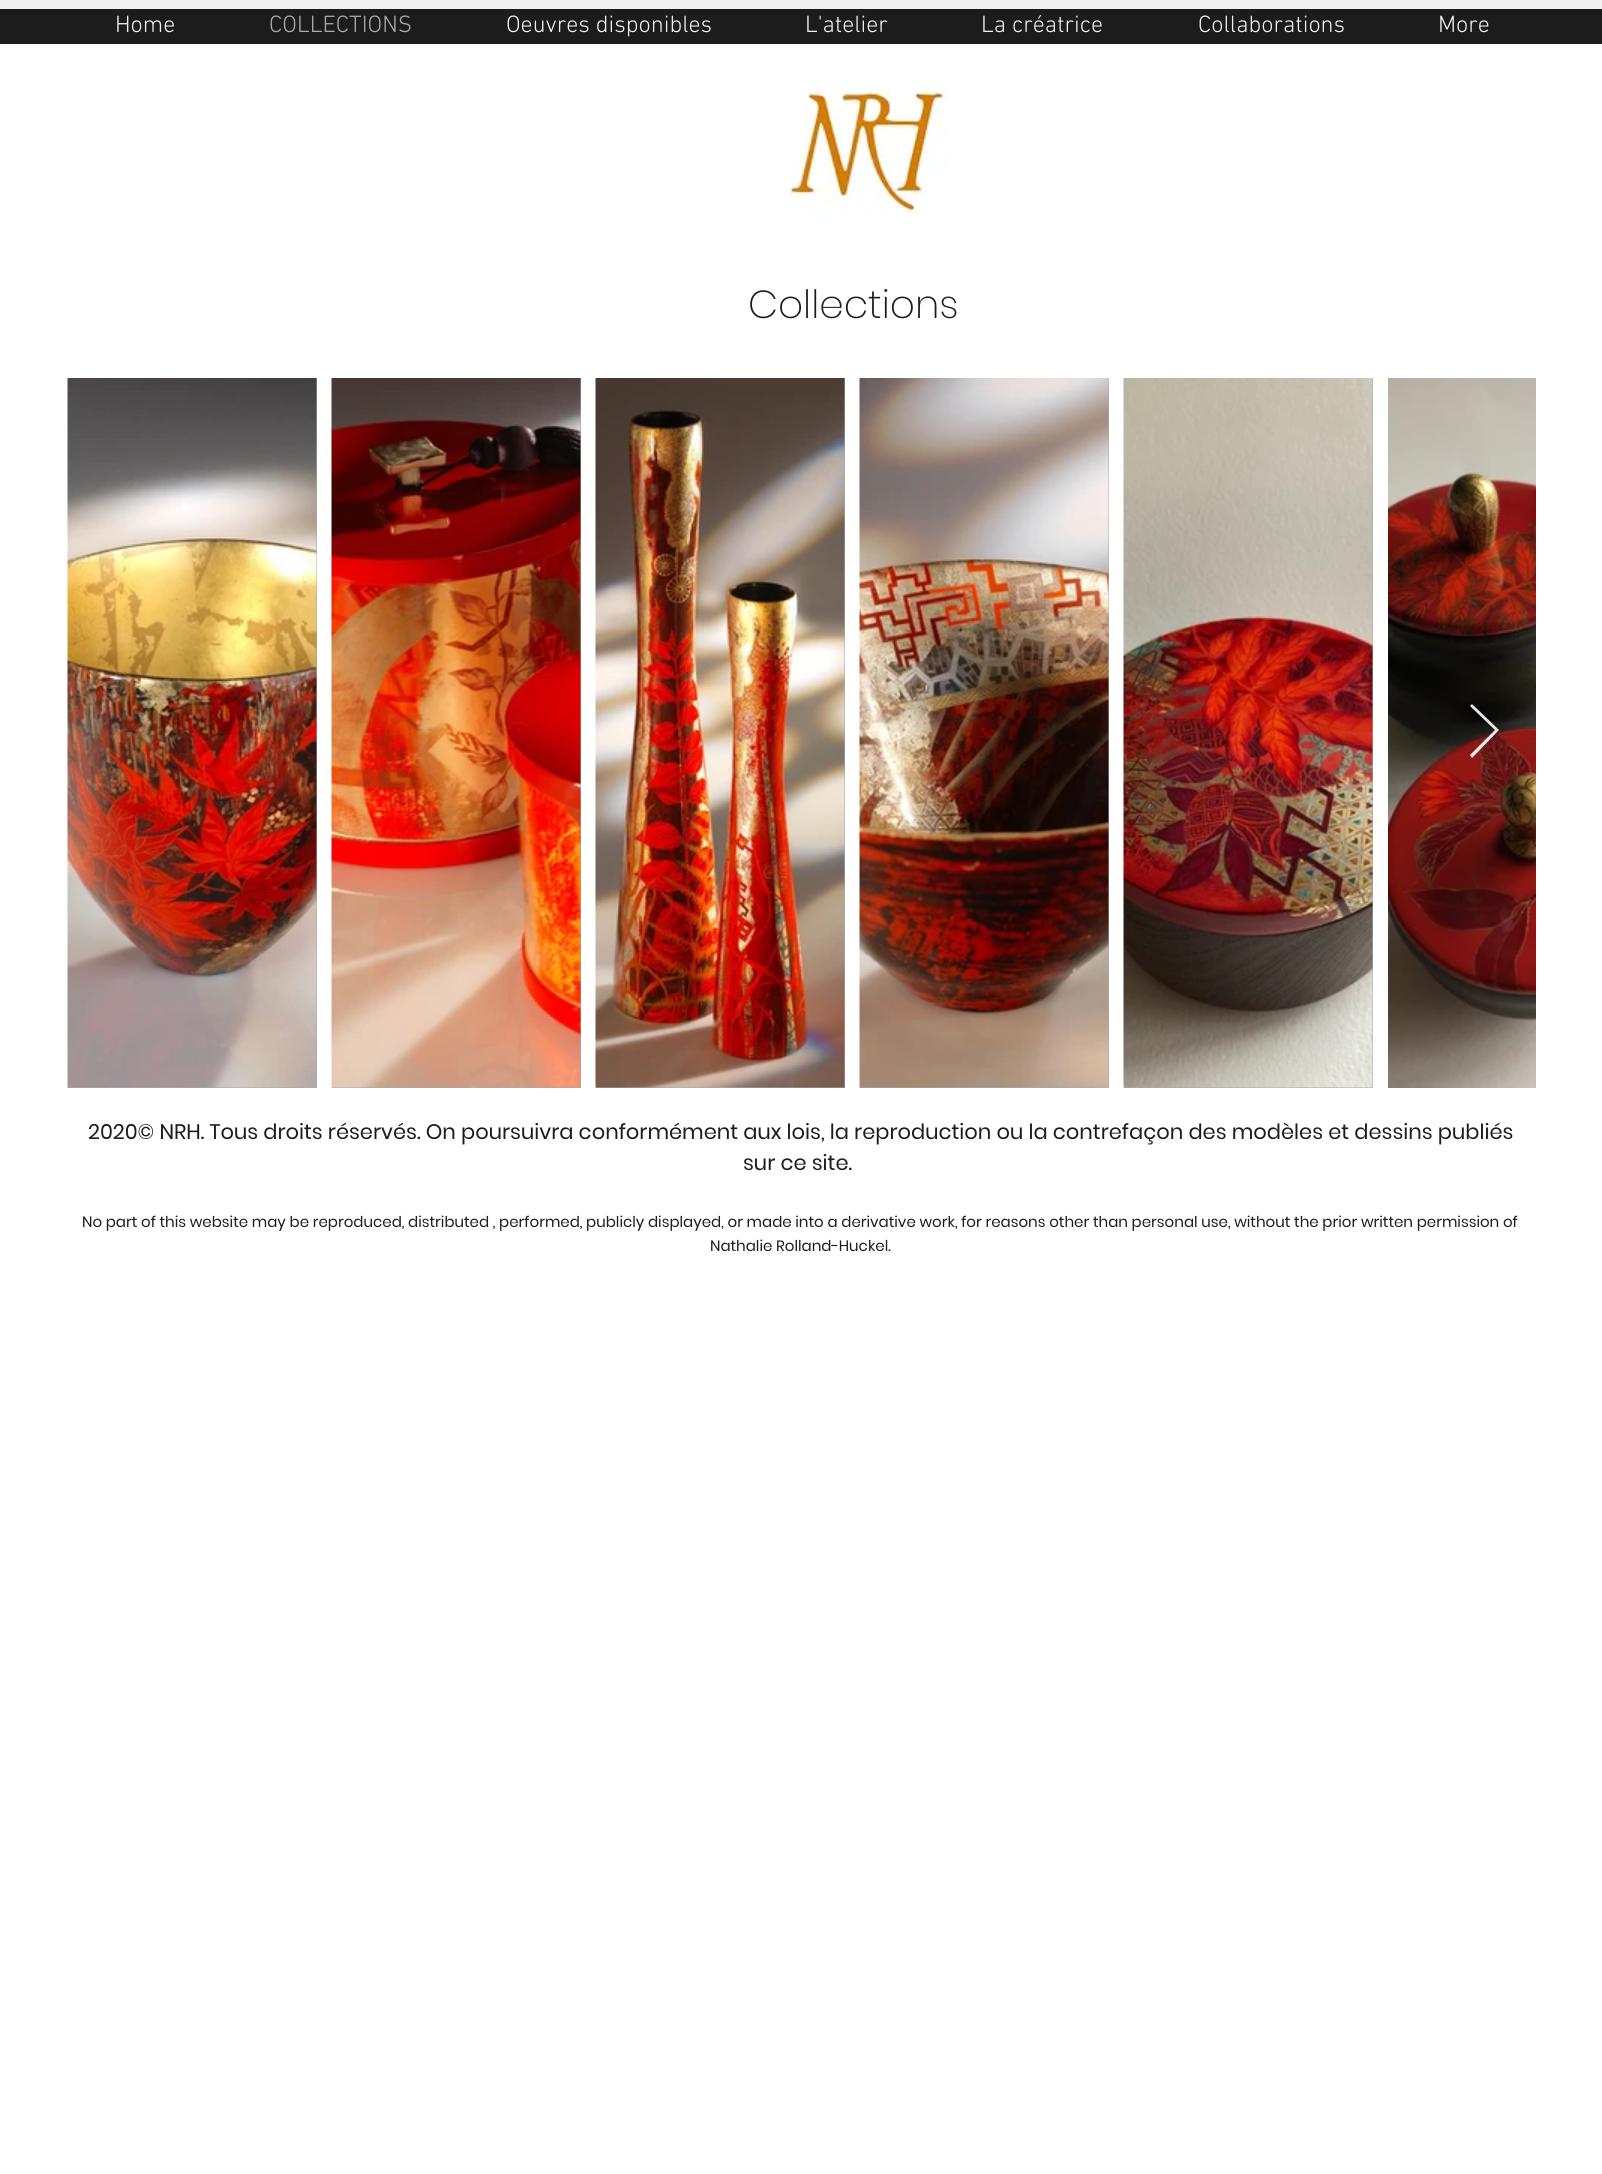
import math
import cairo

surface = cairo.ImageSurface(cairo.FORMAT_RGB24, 1602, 2174)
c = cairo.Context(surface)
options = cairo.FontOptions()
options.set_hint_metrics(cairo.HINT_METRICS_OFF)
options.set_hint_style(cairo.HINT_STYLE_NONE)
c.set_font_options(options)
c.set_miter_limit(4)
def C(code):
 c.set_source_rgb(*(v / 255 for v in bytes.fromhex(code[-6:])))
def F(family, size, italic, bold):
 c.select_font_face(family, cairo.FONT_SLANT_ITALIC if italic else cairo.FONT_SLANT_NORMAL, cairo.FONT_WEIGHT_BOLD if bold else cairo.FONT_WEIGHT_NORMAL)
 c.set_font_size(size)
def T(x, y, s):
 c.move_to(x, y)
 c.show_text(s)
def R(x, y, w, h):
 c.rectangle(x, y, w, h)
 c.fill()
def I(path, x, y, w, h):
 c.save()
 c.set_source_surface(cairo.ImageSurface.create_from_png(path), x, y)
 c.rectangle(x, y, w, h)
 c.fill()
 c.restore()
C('ffffff')
c.paint()
C('1c1c1c')
R(0,9,1602,35)
C('f1f0f0')
R(0,0,1602,9)
F('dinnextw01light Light',24,0,0)
T(115,32,'Home')
C('aaa8a8')
T(269,32,'COLLECTIONS')
C('f1f0f0')
T(506,32,'Oeuvres disponibles')
T(805,32,'L\'atelier')
T(981,32,'La créatrice')
T(1198,32,'Collaborations')
T(1438,32,'More')
I('1.png',782,86,167,133)
F('Poppins ExtraLight',39,0,0)
C('1c1c1c')
T(748,318,'Collections')
C('aaa8a8')
R(68,378,249,710)
I('2.png',67,378,250,710)
R(332,378,249,710)
I('3.png',331,378,250,710)
R(596,378,249,710)
I('4.png',595,378,250,710)
R(860,378,249,710)
I('5.png',859,378,250,710)
R(1124,378,249,710)
I('6.png',1123,378,250,710)
I('7.png',1388,378,148,710)
c.set_source_rgba(1,1,1,0.9)
c.new_path()
c.move_to(1470,706)
c.line_to(1472,704)
c.line_to(1499,730)
c.line_to(1472,758)
c.line_to(1470,755)
c.line_to(1495,730)
c.close_path()
c.fill()
F('Poppins',21,0,0)
C('1c1c1c')
T(88,1139,'2020© NRH. Tous droits réservés. On poursuivra conformément aux lois, la reproduction ou la contrefaçon des modèles et dessins publiés')
T(743,1170,'sur ce site.')
F('Poppins',15,0,0)
T(82,1227,'No part of this website may be reproduced, distributed , performed, publicly displayed, or made into a derivative work, for reasons other than personal use, without the prior written permission of')
T(710,1251,'Nathalie Rolland-Huckel.')
surface.write_to_png('o.png')
